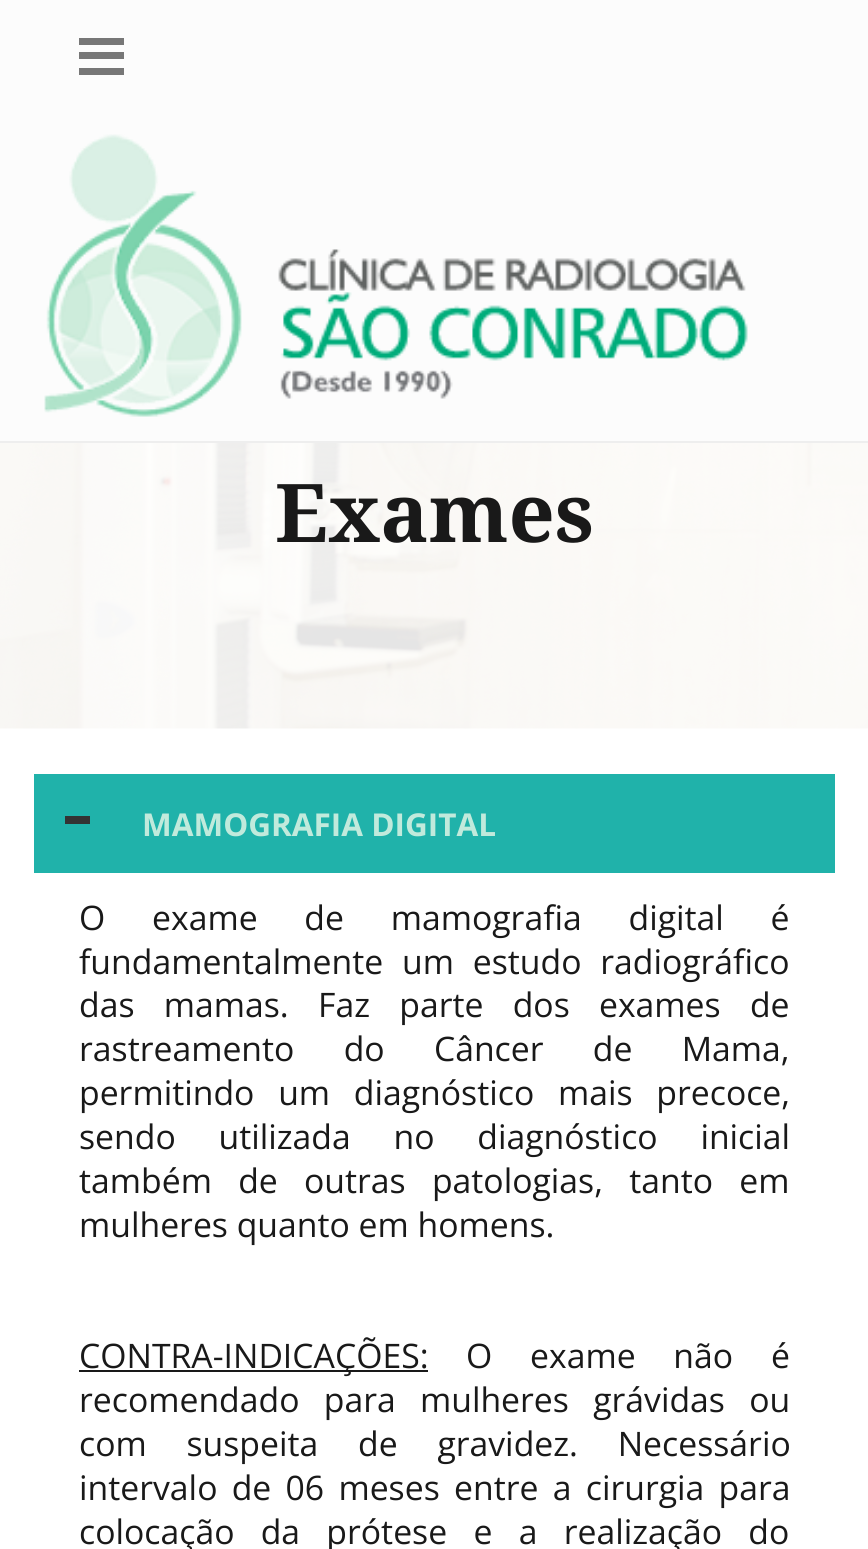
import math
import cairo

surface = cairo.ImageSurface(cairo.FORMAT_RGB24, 868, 1549)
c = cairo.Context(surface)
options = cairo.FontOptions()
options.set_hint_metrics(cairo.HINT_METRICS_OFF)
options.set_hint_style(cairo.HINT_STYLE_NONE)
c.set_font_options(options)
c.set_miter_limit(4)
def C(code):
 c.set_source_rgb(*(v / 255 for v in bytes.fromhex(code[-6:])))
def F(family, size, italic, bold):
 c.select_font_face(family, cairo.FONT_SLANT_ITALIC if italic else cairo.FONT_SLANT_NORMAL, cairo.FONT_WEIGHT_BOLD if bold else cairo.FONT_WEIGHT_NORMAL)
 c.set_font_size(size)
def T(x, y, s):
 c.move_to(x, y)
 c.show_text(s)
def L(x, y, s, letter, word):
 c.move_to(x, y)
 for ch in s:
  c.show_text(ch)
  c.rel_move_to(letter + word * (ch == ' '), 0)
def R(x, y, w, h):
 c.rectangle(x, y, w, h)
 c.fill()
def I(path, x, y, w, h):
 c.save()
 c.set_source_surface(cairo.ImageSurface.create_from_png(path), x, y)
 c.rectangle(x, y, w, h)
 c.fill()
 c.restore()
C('ffffff')
c.paint()
C('fcfcfc')
R(0,0,868,441)
C('eeeeee')
R(0,441,868,2)
C('777777')
R(79,38,45,7)
R(79,52,45,7)
R(79,68,45,7)
I('1.png',44,134,704,283)
I('2.png',0,443,868,286)
F('Droid Serif',81,0,1)
C('191919')
T(275,542,'Exames')
C('20b2aa')
R(34,774,801,99)
C('333333')
R(65,816,25,8)
F('Open Sans',31.5,0,1)
C('c1eadc')
T(142,836,'MAMOGRAFIA DIGITAL')
F('Open Sans',33.75,0,0)
C('191919')
L(79,930,'O exame de mamografia digital é',0,38)
L(79,974,'fundamentalmente um estudo radiográfico',0,10)
L(79,1017,'das mamas. Faz parte dos exames de',0,20.5)
L(79,1061,'rastreamento do Câncer de Mama,',0,40.5)
L(79,1105,'permitindo um diagnóstico mais precoce,',0,15)
L(79,1149,'sendo utilizada no diagnóstico inicial',0,34)
L(79,1193,'também de outras patologias, tanto em',0,17.5)
T(79,1237,'mulheres quanto em homens.')
R(79,1370,349,2)
T(79,1368,'CONTRA-INDICAÇÕES:')
L(466,1368,'O exame não é',0,29)
L(79,1412,'recomendado para mulheres grávidas ou',0,15.5)
L(79,1456,'com suspeita de gravidez. Necessário',0,31)
L(79,1500,'intervalo de 06 meses entre a cirurgia para',0,5.5)
L(79,1544,'colocação da prótese e a realização do',0,17.5)
surface.write_to_png('o.png')
